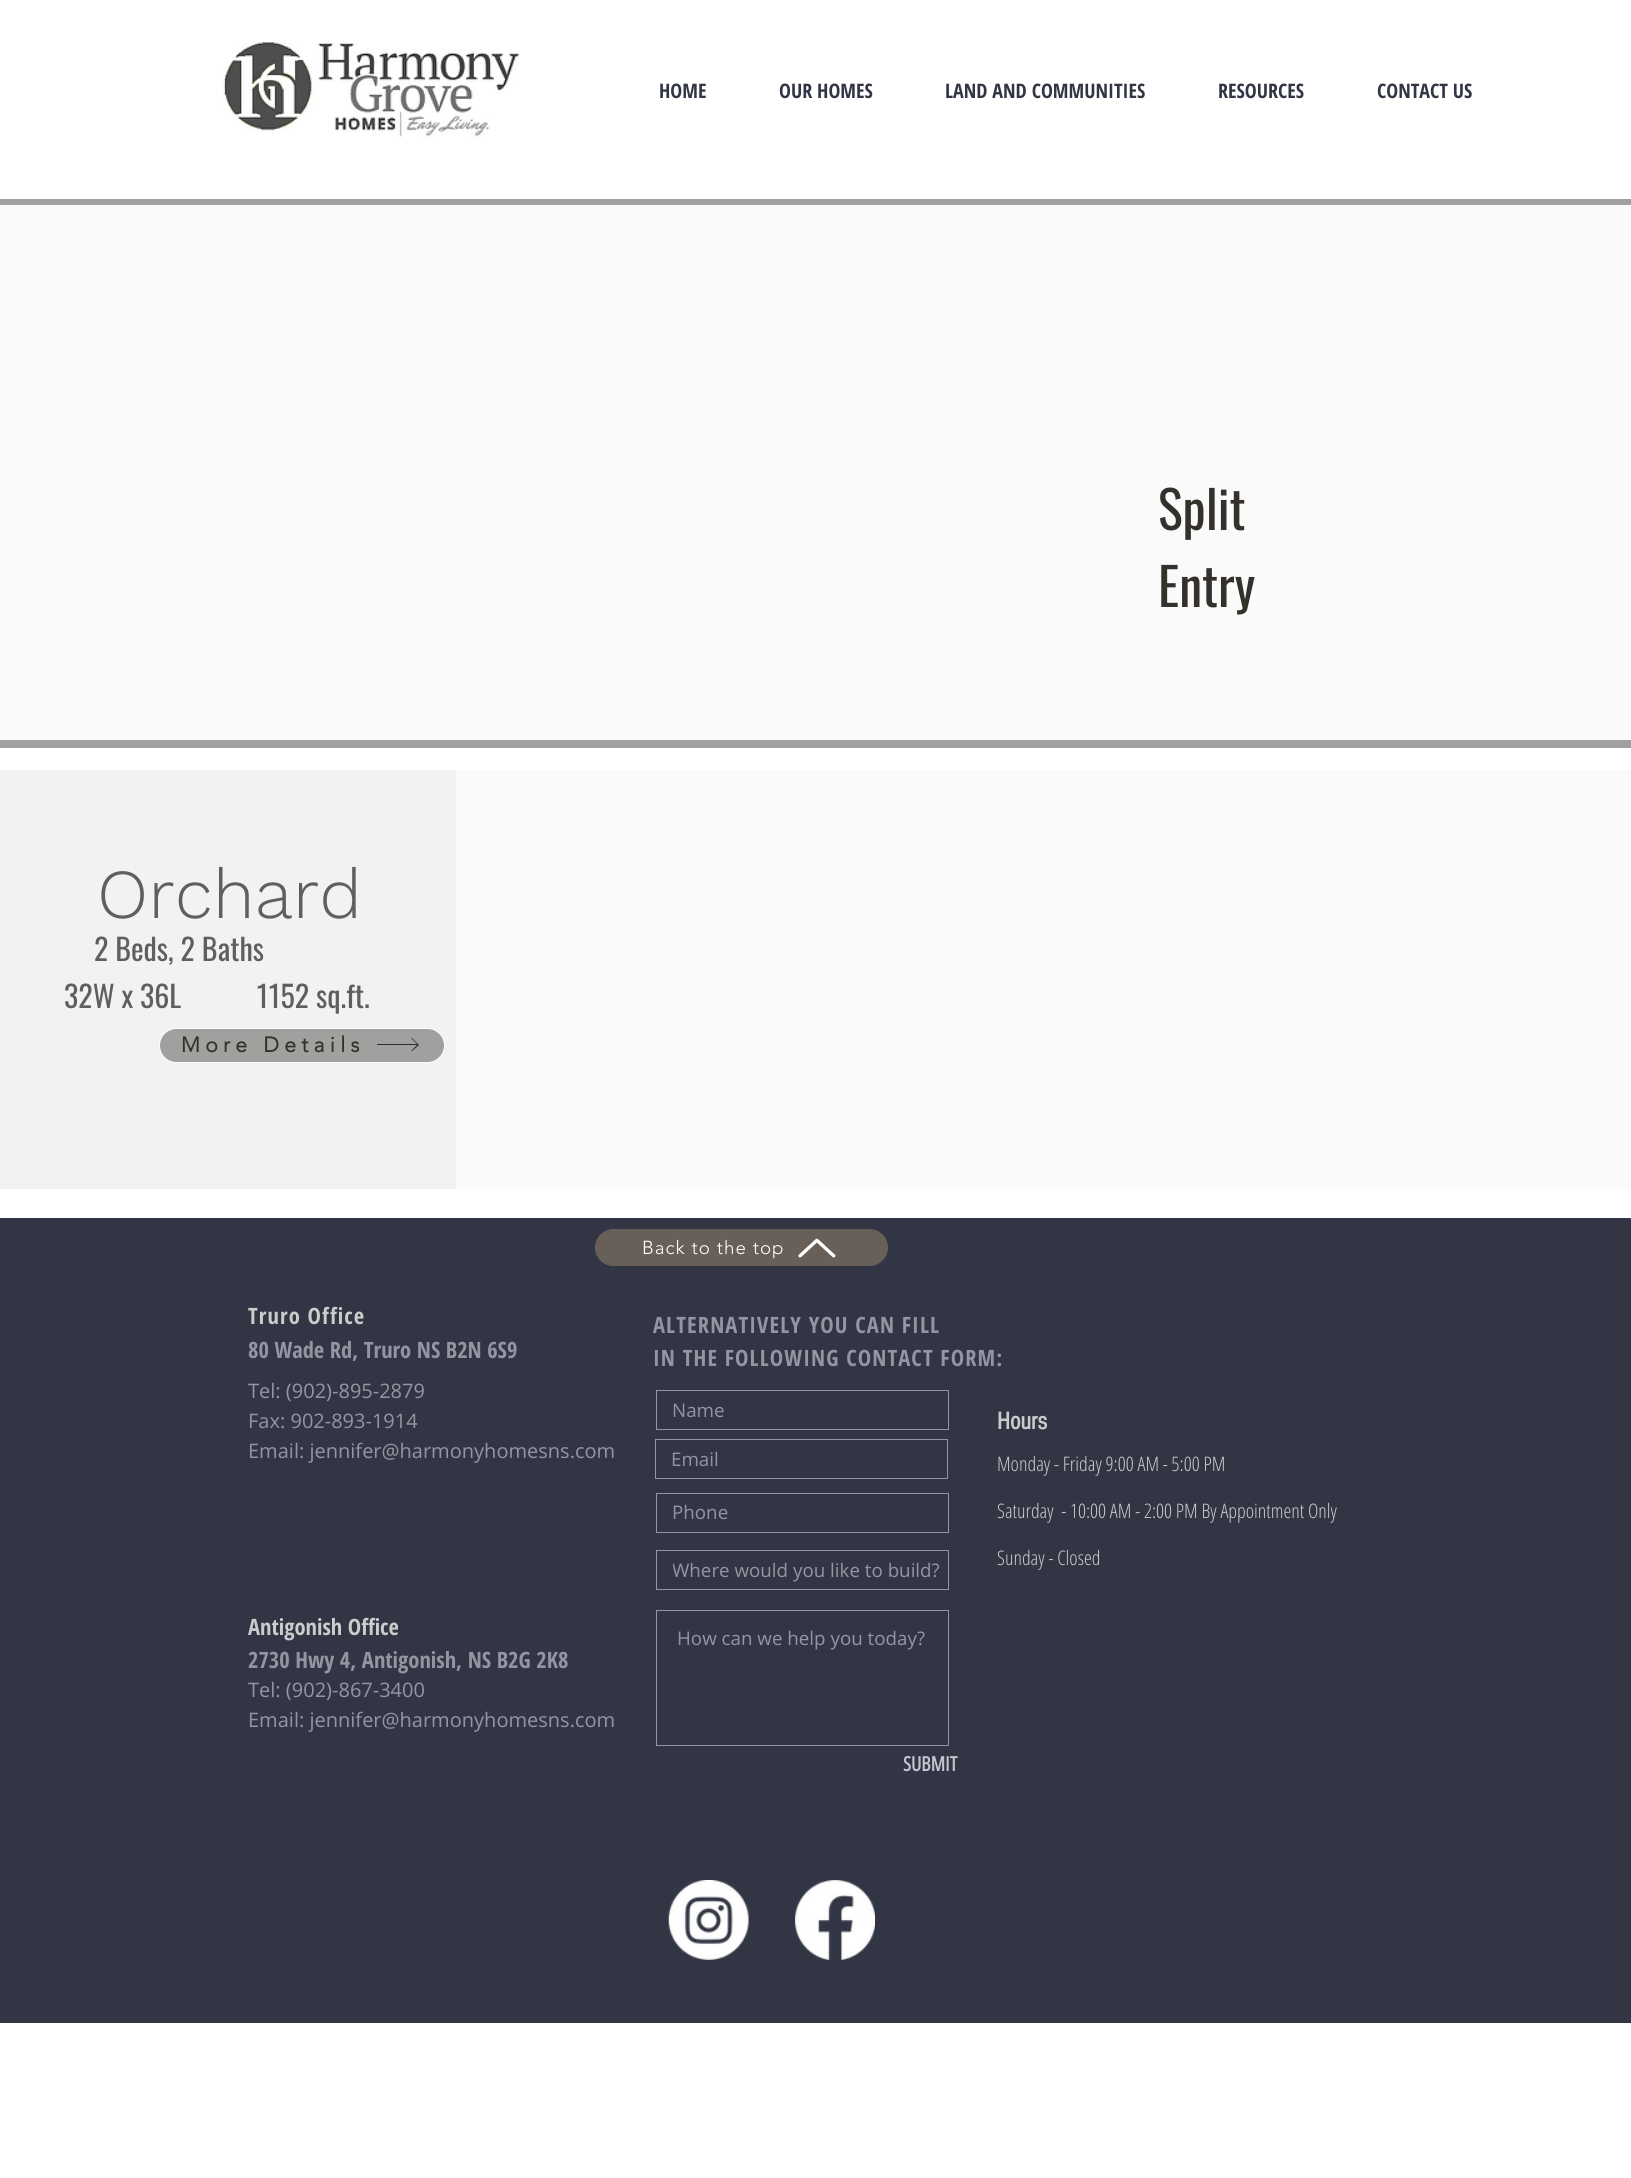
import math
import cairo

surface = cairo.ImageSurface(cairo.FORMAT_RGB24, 1631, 2178)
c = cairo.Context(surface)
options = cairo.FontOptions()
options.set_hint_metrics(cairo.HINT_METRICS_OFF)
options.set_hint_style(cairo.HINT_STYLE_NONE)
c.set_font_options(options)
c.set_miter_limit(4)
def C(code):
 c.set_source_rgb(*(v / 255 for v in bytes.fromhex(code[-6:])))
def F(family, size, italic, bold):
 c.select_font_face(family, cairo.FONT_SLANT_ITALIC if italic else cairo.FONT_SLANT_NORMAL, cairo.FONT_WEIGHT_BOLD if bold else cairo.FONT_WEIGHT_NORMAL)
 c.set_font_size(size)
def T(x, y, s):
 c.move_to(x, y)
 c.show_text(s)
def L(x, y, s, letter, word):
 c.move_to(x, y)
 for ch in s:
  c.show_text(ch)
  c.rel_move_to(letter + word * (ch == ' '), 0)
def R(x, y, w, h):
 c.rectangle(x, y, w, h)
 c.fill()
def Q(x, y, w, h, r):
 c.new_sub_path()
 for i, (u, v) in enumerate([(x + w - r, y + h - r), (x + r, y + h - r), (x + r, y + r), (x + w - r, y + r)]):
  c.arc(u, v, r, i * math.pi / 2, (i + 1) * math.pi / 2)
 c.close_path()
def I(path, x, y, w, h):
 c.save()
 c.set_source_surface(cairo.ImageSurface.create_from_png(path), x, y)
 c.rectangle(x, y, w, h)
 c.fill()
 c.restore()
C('ffffff')
c.paint()
I('1.png',223,42,296,95)
F('Open Sans Condensed',20,0,1)
C('323644')
T(659,98,'HOME')
T(779,98,'OUR HOMES')
T(945,98,'LAND AND COMMUNITIES')
T(1218,98,'RESOURCES')
T(1377,98,'CONTACT US')
C('a0a09f')
R(0,199,1631,6)
C('fafafa')
R(0,205,1631,535)
F('Oswald',52,0,0)
C('34302c')
T(1158,530,'Split')
T(1158,607,'Entry')
C('a0a09f')
R(0,740,1631,8)
C('f2f2f2')
R(0,770,456,419)
F('Work Sans Light',70,0,0)
C('605e5e')
T(97,918,'Orchard')
F('Oswald',30,0,0)
T(64,1008,'32W x 36L           1152 sq.ft.')
C('fafafa')
R(456,770,1175,419)
C('605e5e')
T(94,961,'2 Beds, 2 Baths')
C('a0a09f')
Q(159.5,1028.5,285,34,17)
c.fill_preserve()
C('ffffff')
c.set_line_width(1)
c.stroke()
F('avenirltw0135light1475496',21.25,0,1)
C('34302c')
L(181,1052,'More Details',5.25,0)
C('2f2e2e')
c.new_path()
c.move_to(412,1038)
c.line_to(411,1038)
c.line_to(417,1044)
c.line_to(377,1044)
c.line_to(377,1045)
c.line_to(417,1045)
c.line_to(411,1051)
c.line_to(412,1051)
c.line_to(419,1045)
c.close_path()
c.fill()
C('323644')
R(0,1218,1631,805)
C('685f59')
Q(595.5,1229.5,292,36,18)
c.fill_preserve()
c.stroke()
F('avenirltw0135light1475496 Light',18.75,0,0)
C('ffffff')
L(642,1254,'Back to the top',1,0)
I('2.png',798,1238,38,20)
F('Open Sans Condensed',22.5,0,1)
C('cccccc')
L(248,1324,'Truro Office',1.1,0)
C('9396a2')
T(248,1358,'80 Wade Rd, Truro NS B2N 6S9')
L(653,1333,'ALTERNATIVELY YOU CAN FILL',1.1,0)
L(653,1366,'IN THE FOLLOWING CONTACT FORM:',1.1,0)
F('Open Sans',20,0,0)
T(248,1398,'Tel: (902)-895-2879')
T(248,1428,'Fax: 902-893-1914')
T(248,1458,'Email: jennifer@harmonyhomesns.com')
c.rectangle(656.5,1390.5,292,39)
c.stroke()
F('Open Sans',18.75,0,0)
T(672,1417,'Name')
c.rectangle(655.5,1439.5,292,39)
c.stroke()
T(671,1466,'Email')
c.rectangle(656.5,1493.5,292,39)
c.stroke()
T(672,1519,'Phone')
c.rectangle(656.5,1550.5,292,39)
c.stroke()
c.save()
c.rectangle(673,1558,271,25)
c.clip()
T(672,1577,'Where would you like to build?')
c.restore()
c.rectangle(656.5,1610.5,292,135)
c.stroke()
T(677,1645,'How can we help you today?')
F('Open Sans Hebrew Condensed',20,0,1)
C('c2c6d0')
T(903,1771,'SUBMIT')
F('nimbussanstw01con',25,0,1)
C('cccccc')
T(997,1429,'Hours')
F('Open Sans Condensed Light',20,0,0)
T(997,1471,'Monday - Friday 9:00 AM - 5:00 PM')
T(997,1518,'Saturday  - 10:00 AM - 2:00 PM By Appointment Only')
T(997,1565,'Sunday - Closed')
F('Open Sans Condensed',22.5,0,1)
T(248,1635,'Antigonish Office')
C('9396a2')
T(248,1668,'2730 Hwy 4, Antigonish, NS B2G 2K8')
F('Open Sans',20,0,0)
T(248,1697,'Tel: (902)-867-3400')
T(248,1727,'Email: jennifer@harmonyhomesns.com')
I('3.png',668,1880,81,80)
I('4.png',795,1880,80,80)
surface.write_to_png('o.png')
